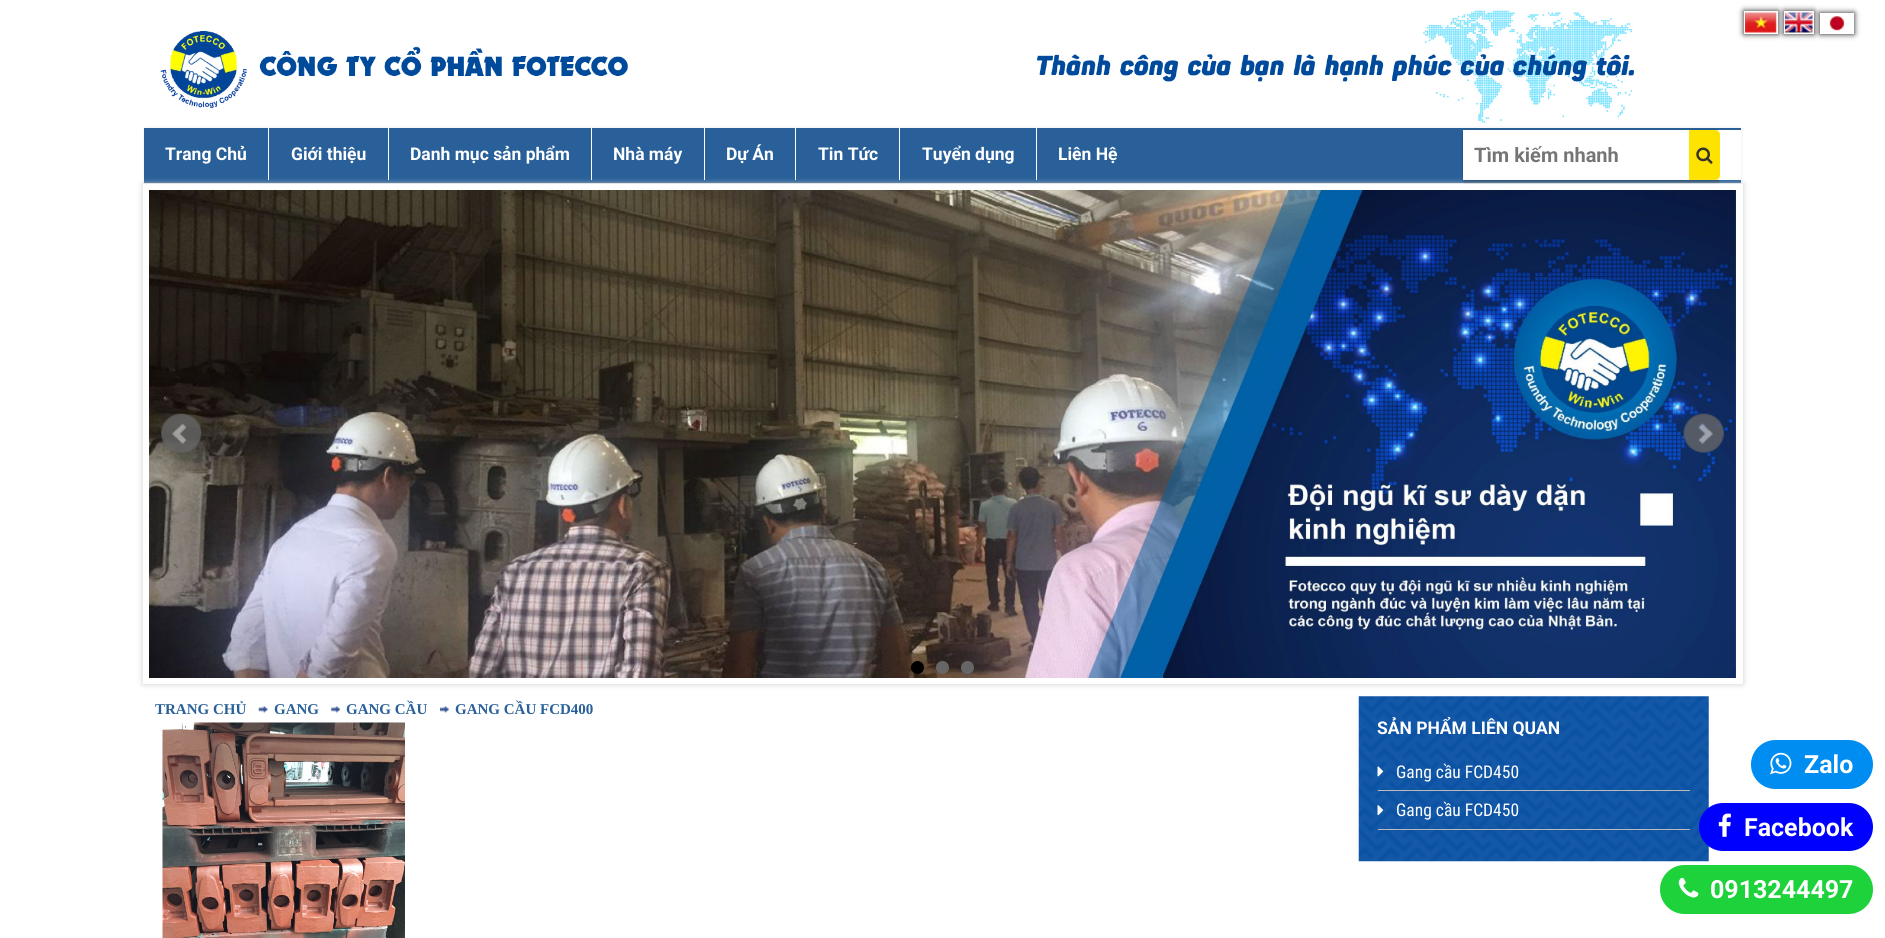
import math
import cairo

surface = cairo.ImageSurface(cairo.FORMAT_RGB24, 1885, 938)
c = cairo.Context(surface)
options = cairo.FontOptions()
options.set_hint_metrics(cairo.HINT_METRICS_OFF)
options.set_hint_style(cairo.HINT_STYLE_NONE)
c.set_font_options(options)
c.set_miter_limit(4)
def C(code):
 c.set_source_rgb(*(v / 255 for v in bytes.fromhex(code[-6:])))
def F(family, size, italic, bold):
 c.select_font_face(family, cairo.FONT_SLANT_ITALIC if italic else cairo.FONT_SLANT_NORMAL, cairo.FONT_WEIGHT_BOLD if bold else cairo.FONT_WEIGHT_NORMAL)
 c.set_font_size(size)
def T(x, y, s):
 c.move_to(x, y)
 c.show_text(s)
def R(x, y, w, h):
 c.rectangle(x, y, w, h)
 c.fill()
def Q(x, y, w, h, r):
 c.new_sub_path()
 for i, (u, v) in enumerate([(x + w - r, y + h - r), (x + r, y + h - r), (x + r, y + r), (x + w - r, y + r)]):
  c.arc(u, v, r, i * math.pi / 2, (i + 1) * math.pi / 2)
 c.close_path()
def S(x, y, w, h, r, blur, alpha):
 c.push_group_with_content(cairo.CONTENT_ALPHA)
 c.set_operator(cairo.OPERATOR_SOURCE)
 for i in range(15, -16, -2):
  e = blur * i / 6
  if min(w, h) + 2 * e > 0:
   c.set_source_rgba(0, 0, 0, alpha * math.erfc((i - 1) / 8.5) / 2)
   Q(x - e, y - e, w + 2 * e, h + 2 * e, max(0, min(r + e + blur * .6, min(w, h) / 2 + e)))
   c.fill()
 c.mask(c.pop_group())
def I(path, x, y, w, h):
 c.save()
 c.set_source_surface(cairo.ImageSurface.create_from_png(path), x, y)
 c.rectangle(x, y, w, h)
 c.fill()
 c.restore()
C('ffffff')
c.paint()
I('1.png',160,31,468,78)
I('2.png',1037,10,597,113)
C('191919')
S(1744,11,34,23,0,3,1)
C('ffffff')
R(1744,11,34,23)
I('3.png',1745,12,32,21)
C('191919')
S(1784,11,30,23,0,3,1)
C('ffffff')
R(1784,11,30,23)
I('4.png',1785,12,28,21)
C('191919')
S(1820,13,34,21,0,3,1)
C('ffffff')
R(1820,13,34,21)
I('5.png',1829,16,17,15)
C('f8f8f8')
Q(143,126,1600,58,5)
c.fill()
C('296099')
R(144,128,1597,55)
C('ffffff')
R(268,128,1,52)
F('Roboto',17.5,0,1)
T(165,160,'Trang Chủ')
R(388,128,1,52)
T(291,160,'Giới thiệu')
R(591,128,1,52)
T(410,160,'Danh mục sản phẩm')
R(704,128,1,52)
T(613,160,'Nhà máy')
R(795,128,1,52)
T(726,160,'Dự Án')
R(899,128,1,52)
T(818,160,'Tin Tức')
R(1036,128,1,52)
T(922,160,'Tuyển dụng')
T(1058,160,'Liên Hệ')
C('000000')
S(1463,133,257,50,2.5,1,.24)
S(1463,130,257,50,2.5,1,.12)
C('ffffff')
R(1463,130,278,50)
F('Roboto',20,0,1)
C('757575')
T(1474,162,'Tìm kiếm nhanh')
C('ffe300')
c.new_path()
c.move_to(1689,130)
c.line_to(1715,130)
c.curve_to(1718,130,1720,132,1720,135)
c.line_to(1720,175)
c.curve_to(1720,178,1718,180,1715,180)
c.line_to(1689,180)
c.close_path()
c.fill()
I('6.png',1696,147,17,17)
C('cccccc')
S(143,184,1600,500,0,3,1)
C('ffffff')
R(143,184,1600,500)
I('7.png',149,190,1587,488)
I('8.png',161,413,41,40)
I('9.png',1683,413,41,40)
C('000000')
c.arc(917.5,667.5,6.5,0,2 * math.pi)
c.fill()
C('666666')
c.arc(942.5,667.5,6.5,0,2 * math.pi)
c.fill()
c.arc(967.5,667.5,6.5,0,2 * math.pi)
c.fill()
F('Liberation Serif',15,0,1)
C('296099')
T(155,714,'TRANG CHỦ')
I('10.png',258,706,10,7)
T(274,714,'GANG')
I('11.png',331,706,9,7)
T(346,714,'GANG CẦU')
I('12.png',440,706,9,7)
T(455,714,'GANG CẦU FCD400')
I('13.png',162,722,243,216)
I('14.png',1358,696,351,166)
F('Roboto',17.5,0,1)
C('ffffff')
T(1377,734,'SẢN PHẨM LIÊN QUAN')
C('bbbbbb')
R(1378,790,312,1)
I('15.png',1377,766,7,11)
F('Roboto Condensed',17.5,0,0)
C('ffffff')
T(1396,778,'Gang cầu FCD450')
C('bbbbbb')
R(1378,829,312,1)
I('16.png',1377,805,7,11)
C('ffffff')
T(1396,816,'Gang cầu FCD450')
C('008df2')
Q(1751,740,122,49,24.5)
c.fill()
I('17.png',1770,752,22,23)
F('Roboto',25,0,1)
C('ffffff')
T(1804,773,'Zalo')
C('0000ff')
Q(1699,803,174,48,24)
c.fill()
I('18.png',1718,813,13,24)
C('ffffff')
T(1744,836,'Facebook')
C('1ed23c')
Q(1660,865,213,49,24.5)
c.fill()
I('19.png',1678,877,21,21)
C('ffffff')
T(1710,898,'0913244497')
surface.write_to_png('o.png')
